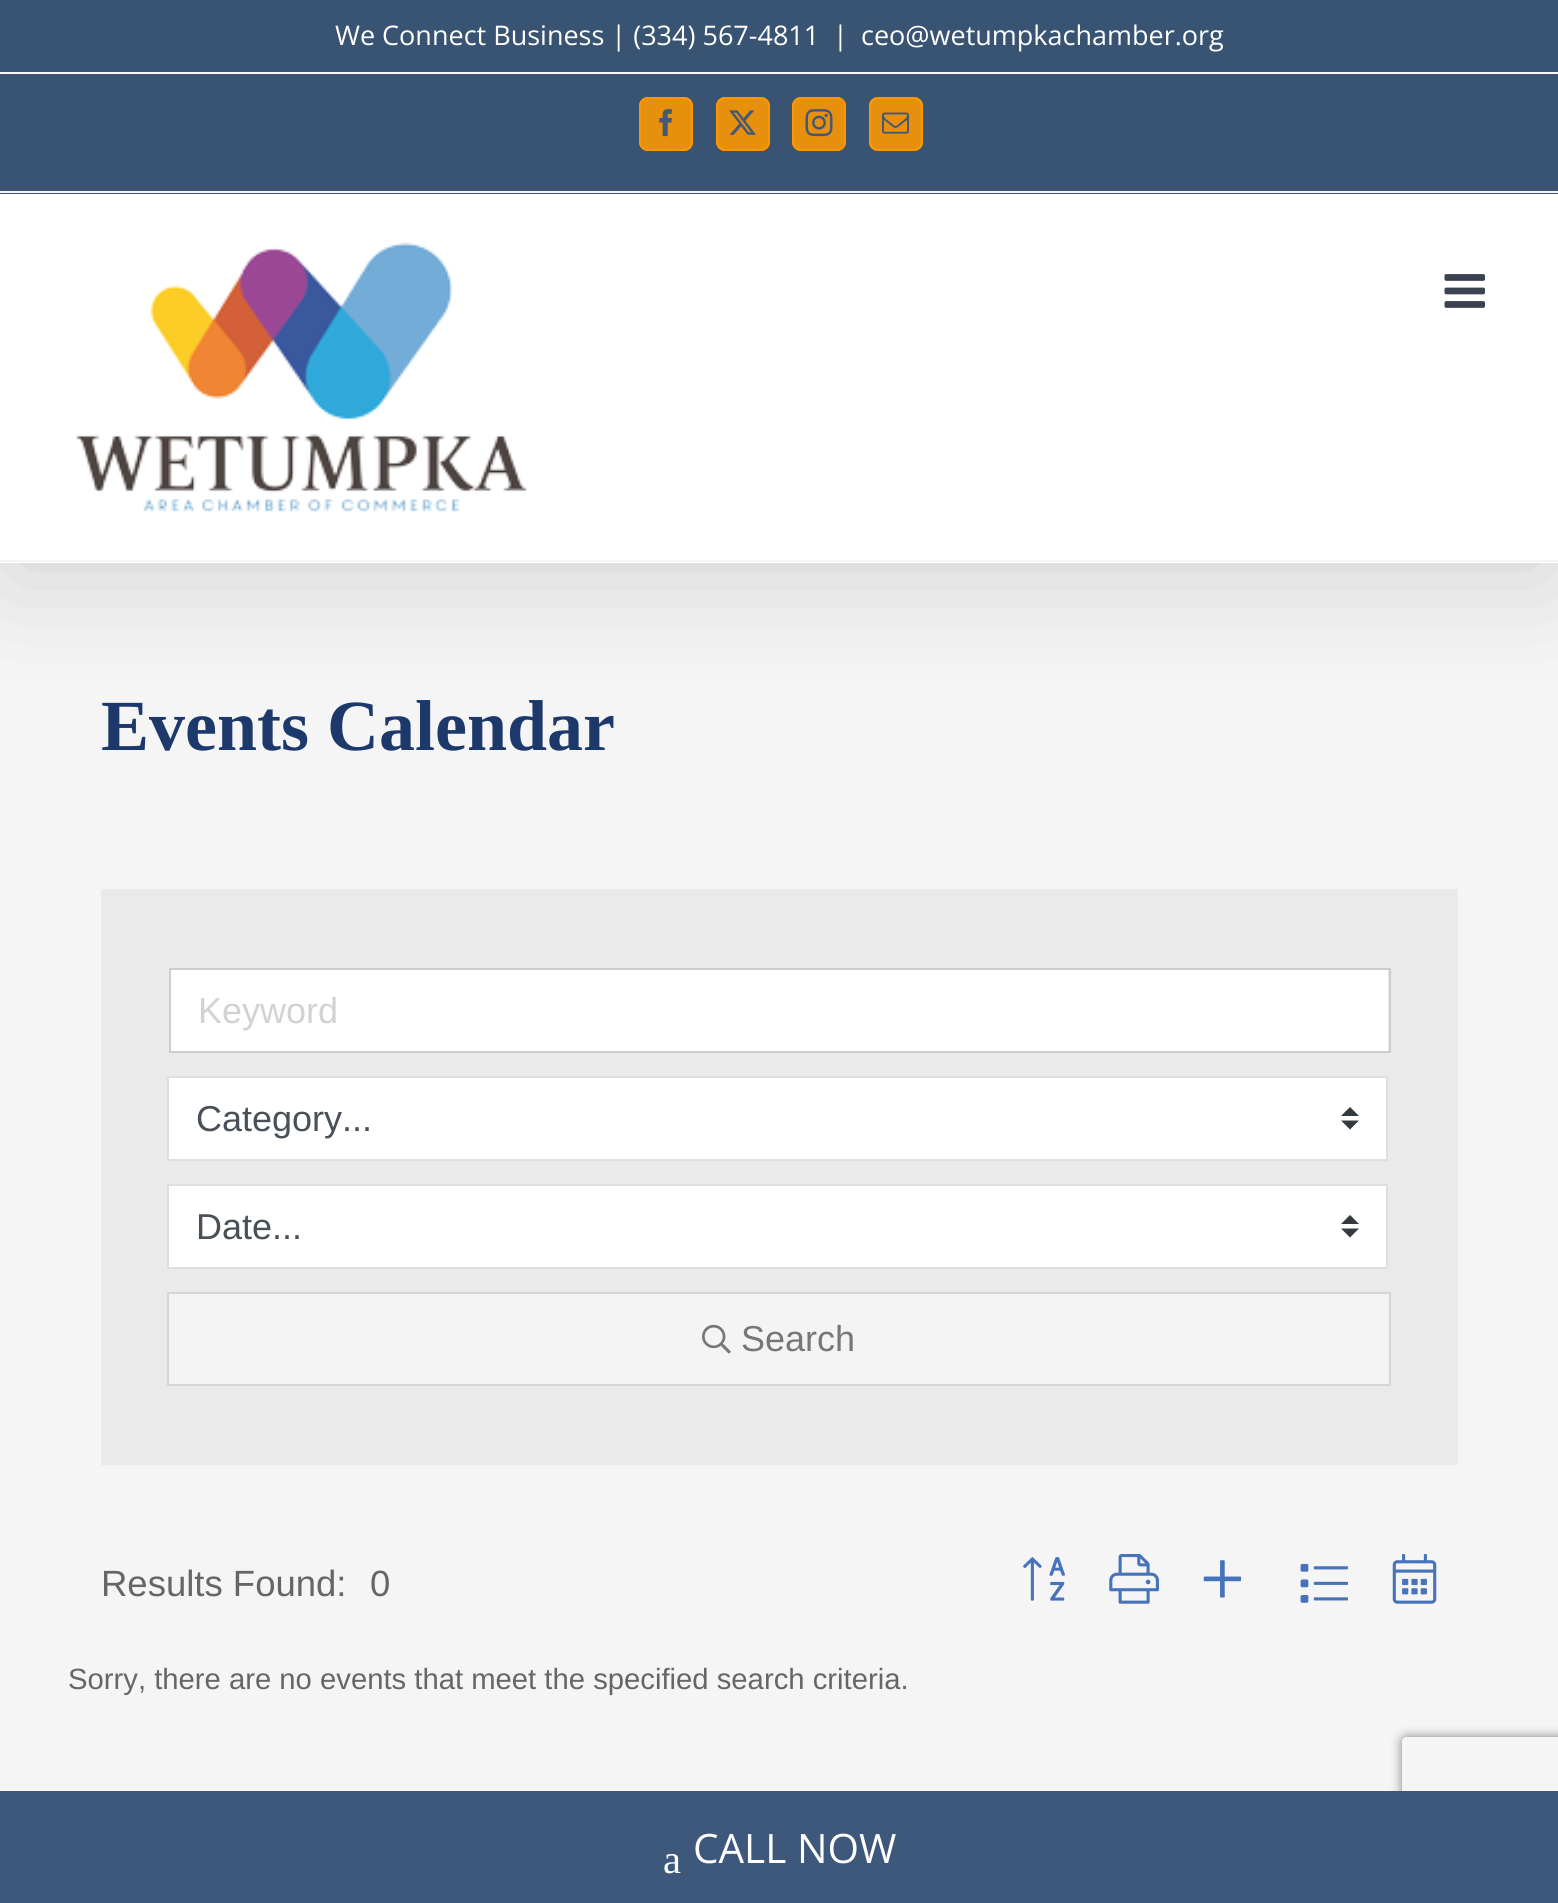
import math
import cairo

surface = cairo.ImageSurface(cairo.FORMAT_RGB24, 1558, 1903)
c = cairo.Context(surface)
options = cairo.FontOptions()
options.set_hint_metrics(cairo.HINT_METRICS_OFF)
options.set_hint_style(cairo.HINT_STYLE_NONE)
c.set_font_options(options)
c.set_miter_limit(4)
def C(code):
 c.set_source_rgb(*(v / 255 for v in bytes.fromhex(code[-6:])))
def F(family, size, italic, bold):
 c.select_font_face(family, cairo.FONT_SLANT_ITALIC if italic else cairo.FONT_SLANT_NORMAL, cairo.FONT_WEIGHT_BOLD if bold else cairo.FONT_WEIGHT_NORMAL)
 c.set_font_size(size)
def T(x, y, s):
 c.move_to(x, y)
 c.show_text(s)
def R(x, y, w, h):
 c.rectangle(x, y, w, h)
 c.fill()
def Q(x, y, w, h, r):
 c.new_sub_path()
 for i, (u, v) in enumerate([(x + w - r, y + h - r), (x + r, y + h - r), (x + r, y + r), (x + w - r, y + r)]):
  c.arc(u, v, r, i * math.pi / 2, (i + 1) * math.pi / 2)
 c.close_path()
def S(x, y, w, h, r, blur, alpha):
 c.push_group_with_content(cairo.CONTENT_ALPHA)
 c.set_operator(cairo.OPERATOR_SOURCE)
 for i in range(15, -16, -2):
  e = blur * i / 6
  if min(w, h) + 2 * e > 0:
   c.set_source_rgba(0, 0, 0, alpha * math.erfc((i - 1) / 8.5) / 2)
   Q(x - e, y - e, w + 2 * e, h + 2 * e, max(0, min(r + e + blur * .6, min(w, h) / 2 + e)))
   c.fill()
 c.mask(c.pop_group())
def I(path, x, y, w, h):
 c.save()
 c.set_source_surface(cairo.ImageSurface.create_from_png(path), x, y)
 c.rectangle(x, y, w, h)
 c.fill()
 c.restore()
C('f5f5f5')
c.paint()
C('000000')
S(5,27,1550,554,0,56,.14)
C('395472')
R(0,0,1558,194)
C('f5f5f5')
R(0,191,1558,2)
R(0,72,1558,2)
F('Open Sans',27,0,0)
C('ffffff')
T(335,45,'We Connect Business | (334) 567-4811')
T(833,45,'|')
T(861,45,'ceo@wetumpkachamber.org')
C('e7900e')
Q(639,97,54,54,9)
c.fill()
Q(640,98,52,52,8)
c.set_source_rgba(1,0.596,0,0.88)
c.stroke()
I('1.png',659,109,13,28)
C('e7900e')
Q(716,97,54,54,9)
c.fill()
Q(717,98,52,52,8)
c.set_source_rgba(1,0.596,0,0.88)
c.stroke()
I('2.png',729,110,27,25)
C('e7900e')
Q(792,97,54,54,9)
c.fill()
Q(793,98,52,52,8)
c.set_source_rgba(1,0.596,0,0.88)
c.stroke()
I('3.png',805,109,28,28)
C('e7900e')
Q(869,97,54,54,9)
c.fill()
Q(870,98,52,52,8)
c.set_source_rgba(1,0.596,0,0.88)
c.stroke()
I('4.png',882,112,27,22)
C('ffffff')
R(0,194,1558,369)
C('f5f5f5')
R(0,560,1558,2)
I('5.png',76,242,451,270)
I('6.png',1444,274,41,34)
F('Liberation Serif',72,0,1)
C('1d396b')
T(101,750,'Events Calendar')
C('eaeaea')
R(101,889,1357,576)
C('ffffff')
R(171,970,1217,81)
c.rectangle(170,969,1220,83)
C('cdcdcd')
c.stroke()
F('Liberation Sans',36,0,0)
C('d2d2d2')
T(198,1023,'Keyword')
C('ffffff')
R(169,1078,1217,81)
C('343a40')
c.new_path()
c.move_to(1350,1107)
c.line_to(1341,1116)
c.line_to(1359,1116)
c.close_path()
c.move_to(1350,1129.5)
c.line_to(1341,1120.5)
c.line_to(1359,1120.5)
c.close_path()
c.fill()
c.rectangle(168,1077,1219,83)
C('dfdfdf')
c.stroke()
C('495057')
T(196,1131,'Category...')
C('ffffff')
R(169,1186,1217,81)
C('343a40')
c.new_path()
c.move_to(1350,1215)
c.line_to(1341,1224)
c.line_to(1359,1224)
c.close_path()
c.move_to(1350,1237.5)
c.line_to(1341,1228.5)
c.line_to(1359,1228.5)
c.close_path()
c.fill()
c.rectangle(168,1185,1219,83)
C('dfdfdf')
c.stroke()
C('495057')
T(196,1239,'Date...')
C('f4f4f4')
c.rectangle(168,1293,1222,92)
c.fill_preserve()
C('d6d6d6')
c.stroke()
I('7.png',702,1324,29,30)
C('777777')
T(741,1351,'Search')
F('Liberation Sans',36.5,0,0)
C('666666')
T(101,1596,'Results Found:')
T(370,1596,'0')
I('8.png',1023,1557,42,44)
I('9.png',1109,1554,50,50)
I('10.png',1203,1560,39,38)
I('11.png',1300,1563,48,40)
I('12.png',1392,1554,45,50)
F('Liberation Sans',29.25,0,0)
T(68,1689,'Sorry, there are no events that meet the specified search criteria.')
c.save()
c.set_fill_rule(cairo.FILL_RULE_EVEN_ODD)
c.new_path()
c.move_to(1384,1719)
c.line_to(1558,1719)
c.line_to(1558,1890)
c.line_to(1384,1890)
c.close_path()
c.move_to(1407,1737)
c.line_to(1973,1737)
c.curve_to(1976,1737,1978,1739,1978,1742)
c.line_to(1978,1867)
c.curve_to(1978,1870,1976,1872,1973,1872)
c.line_to(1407,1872)
c.curve_to(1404,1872,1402,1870,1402,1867)
c.line_to(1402,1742)
c.curve_to(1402,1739,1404,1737,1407,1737)
c.close_path()
c.clip()
C('808080')
S(1402,1737,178,135,5,5.5,1)
c.restore()
C('3e587b')
R(0,1791,1558,112)
F('Liberation Serif',40.5,0,0)
C('ffffff')
T(663,1873,'a')
F('Open Sans',40.5,0,0)
T(693,1863,'CALL NOW')
surface.write_to_png('o.png')
